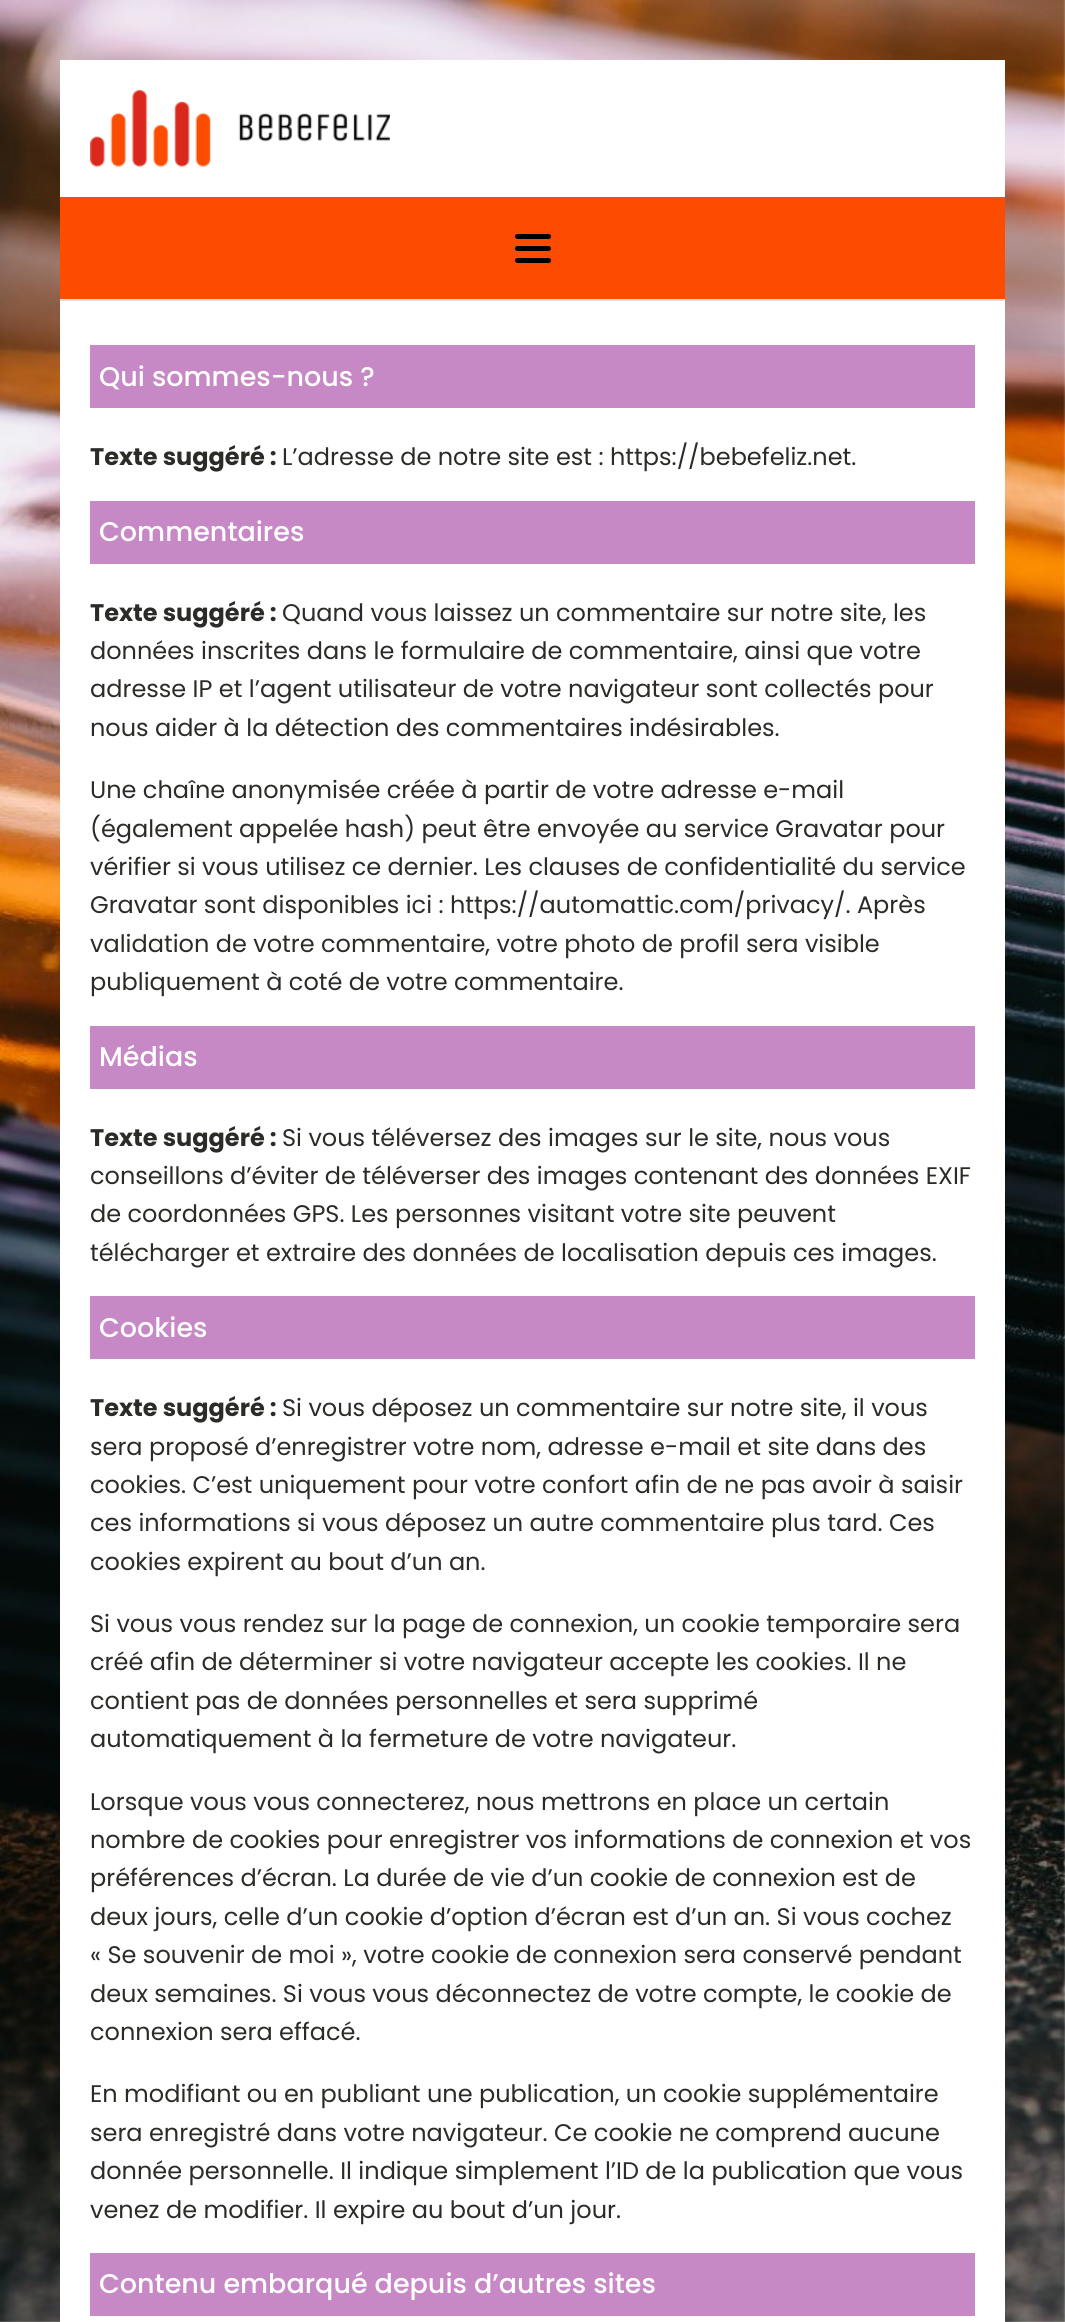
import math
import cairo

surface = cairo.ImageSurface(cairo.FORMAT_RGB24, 1065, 2322)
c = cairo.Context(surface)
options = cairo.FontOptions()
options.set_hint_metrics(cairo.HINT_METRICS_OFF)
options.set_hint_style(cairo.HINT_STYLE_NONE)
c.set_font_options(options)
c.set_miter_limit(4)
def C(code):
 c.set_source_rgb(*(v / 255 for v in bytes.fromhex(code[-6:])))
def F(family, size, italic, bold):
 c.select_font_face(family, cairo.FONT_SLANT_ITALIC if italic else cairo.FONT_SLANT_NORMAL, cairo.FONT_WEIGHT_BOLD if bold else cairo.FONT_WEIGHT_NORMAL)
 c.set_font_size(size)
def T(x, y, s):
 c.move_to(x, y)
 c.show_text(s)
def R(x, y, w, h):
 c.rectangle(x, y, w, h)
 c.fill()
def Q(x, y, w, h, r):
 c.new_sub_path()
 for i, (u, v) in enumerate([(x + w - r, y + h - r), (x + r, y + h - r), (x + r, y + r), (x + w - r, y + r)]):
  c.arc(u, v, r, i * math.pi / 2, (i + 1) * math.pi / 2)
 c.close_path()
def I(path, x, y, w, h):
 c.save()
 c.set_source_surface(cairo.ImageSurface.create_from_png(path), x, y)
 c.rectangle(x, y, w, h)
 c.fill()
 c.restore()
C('ffffff')
c.paint()
I('1.png',0,0,1065,2322)
C('ffffff')
R(60,60,945,2262)
I('2.png',90,90,300,77)
C('fc4c02')
R(60,197,945,102)
C('dddddd')
R(60,299,945,2)
C('000000')
Q(515,234,36,5,2.5)
c.fill()
Q(515,246,36,5,2.5)
c.fill()
Q(515,258,36,5,2.5)
c.fill()
C('c788c6')
R(90,345,885,63)
F('Poppins Medium',27,0,0)
C('ffffff')
T(99,386,'Qui sommes-nous ?')
F('Poppins',24,0,1)
C('2b2c28')
T(90,465,'Texte suggéré :')
F('Poppins',24,0,0)
T(282,465,'L’adresse de notre site est : https://bebefeliz.net.')
C('c788c6')
R(90,501,885,63)
F('Poppins Medium',27,0,0)
C('ffffff')
T(99,541,'Commentaires')
F('Poppins',24,0,1)
C('2b2c28')
T(90,621,'Texte suggéré :')
F('Poppins',24,0,0)
T(282,621,'Quand vous laissez un commentaire sur notre site, les')
T(90,659,'données inscrites dans le formulaire de commentaire, ainsi que votre')
T(90,697,'adresse IP et l’agent utilisateur de votre navigateur sont collectés pour')
T(90,736,'nous aider à la détection des commentaires indésirables.')
T(90,798,'Une chaîne anonymisée créée à partir de votre adresse e-mail')
T(90,837,'(également appelée hash) peut être envoyée au service Gravatar pour')
T(90,875,'vérifier si vous utilisez ce dernier. Les clauses de confidentialité du service')
T(90,913,'Gravatar sont disponibles ici : https://automattic.com/privacy/. Après')
T(90,952,'validation de votre commentaire, votre photo de profil sera visible')
T(90,990,'publiquement à coté de votre commentaire.')
C('c788c6')
R(90,1026,885,63)
F('Poppins Medium',27,0,0)
C('ffffff')
T(99,1066,'Médias')
F('Poppins',24,0,1)
C('2b2c28')
T(90,1146,'Texte suggéré :')
F('Poppins',24,0,0)
T(282,1146,'Si vous téléversez des images sur le site, nous vous')
T(90,1184,'conseillons d’éviter de téléverser des images contenant des données EXIF')
T(90,1222,'de coordonnées GPS. Les personnes visitant votre site peuvent')
T(90,1261,'télécharger et extraire des données de localisation depuis ces images.')
C('c788c6')
R(90,1296,885,63)
F('Poppins Medium',27,0,0)
C('ffffff')
T(99,1337,'Cookies')
F('Poppins',24,0,1)
C('2b2c28')
T(90,1416,'Texte suggéré :')
F('Poppins',24,0,0)
T(282,1416,'Si vous déposez un commentaire sur notre site, il vous')
T(90,1455,'sera proposé d’enregistrer votre nom, adresse e-mail et site dans des')
T(90,1493,'cookies. C’est uniquement pour votre confort afin de ne pas avoir à saisir')
T(90,1531,'ces informations si vous déposez un autre commentaire plus tard. Ces')
T(90,1570,'cookies expirent au bout d’un an.')
T(90,1632,'Si vous vous rendez sur la page de connexion, un cookie temporaire sera')
T(90,1670,'créé afin de déterminer si votre navigateur accepte les cookies. Il ne')
T(90,1709,'contient pas de données personnelles et sera supprimé')
T(90,1747,'automatiquement à la fermeture de votre navigateur.')
T(90,1810,'Lorsque vous vous connecterez, nous mettrons en place un certain')
T(90,1848,'nombre de cookies pour enregistrer vos informations de connexion et vos')
T(90,1886,'préférences d’écran. La durée de vie d’un cookie de connexion est de')
T(90,1925,'deux jours, celle d’un cookie d’option d’écran est d’un an. Si vous cochez')
T(90,1963,'« Se souvenir de moi », votre cookie de connexion sera conservé pendant')
T(90,2002,'deux semaines. Si vous vous déconnectez de votre compte, le cookie de')
T(90,2040,'connexion sera effacé.')
T(90,2102,'En modifiant ou en publiant une publication, un cookie supplémentaire')
T(90,2141,'sera enregistré dans votre navigateur. Ce cookie ne comprend aucune')
T(90,2179,'donnée personnelle. Il indique simplement l’ID de la publication que vous')
T(90,2218,'venez de modifier. Il expire au bout d’un jour.')
C('c788c6')
R(90,2253,885,63)
F('Poppins Medium',27,0,0)
C('ffffff')
T(99,2293,'Contenu embarqué depuis d’autres sites')
surface.write_to_png('o.png')
